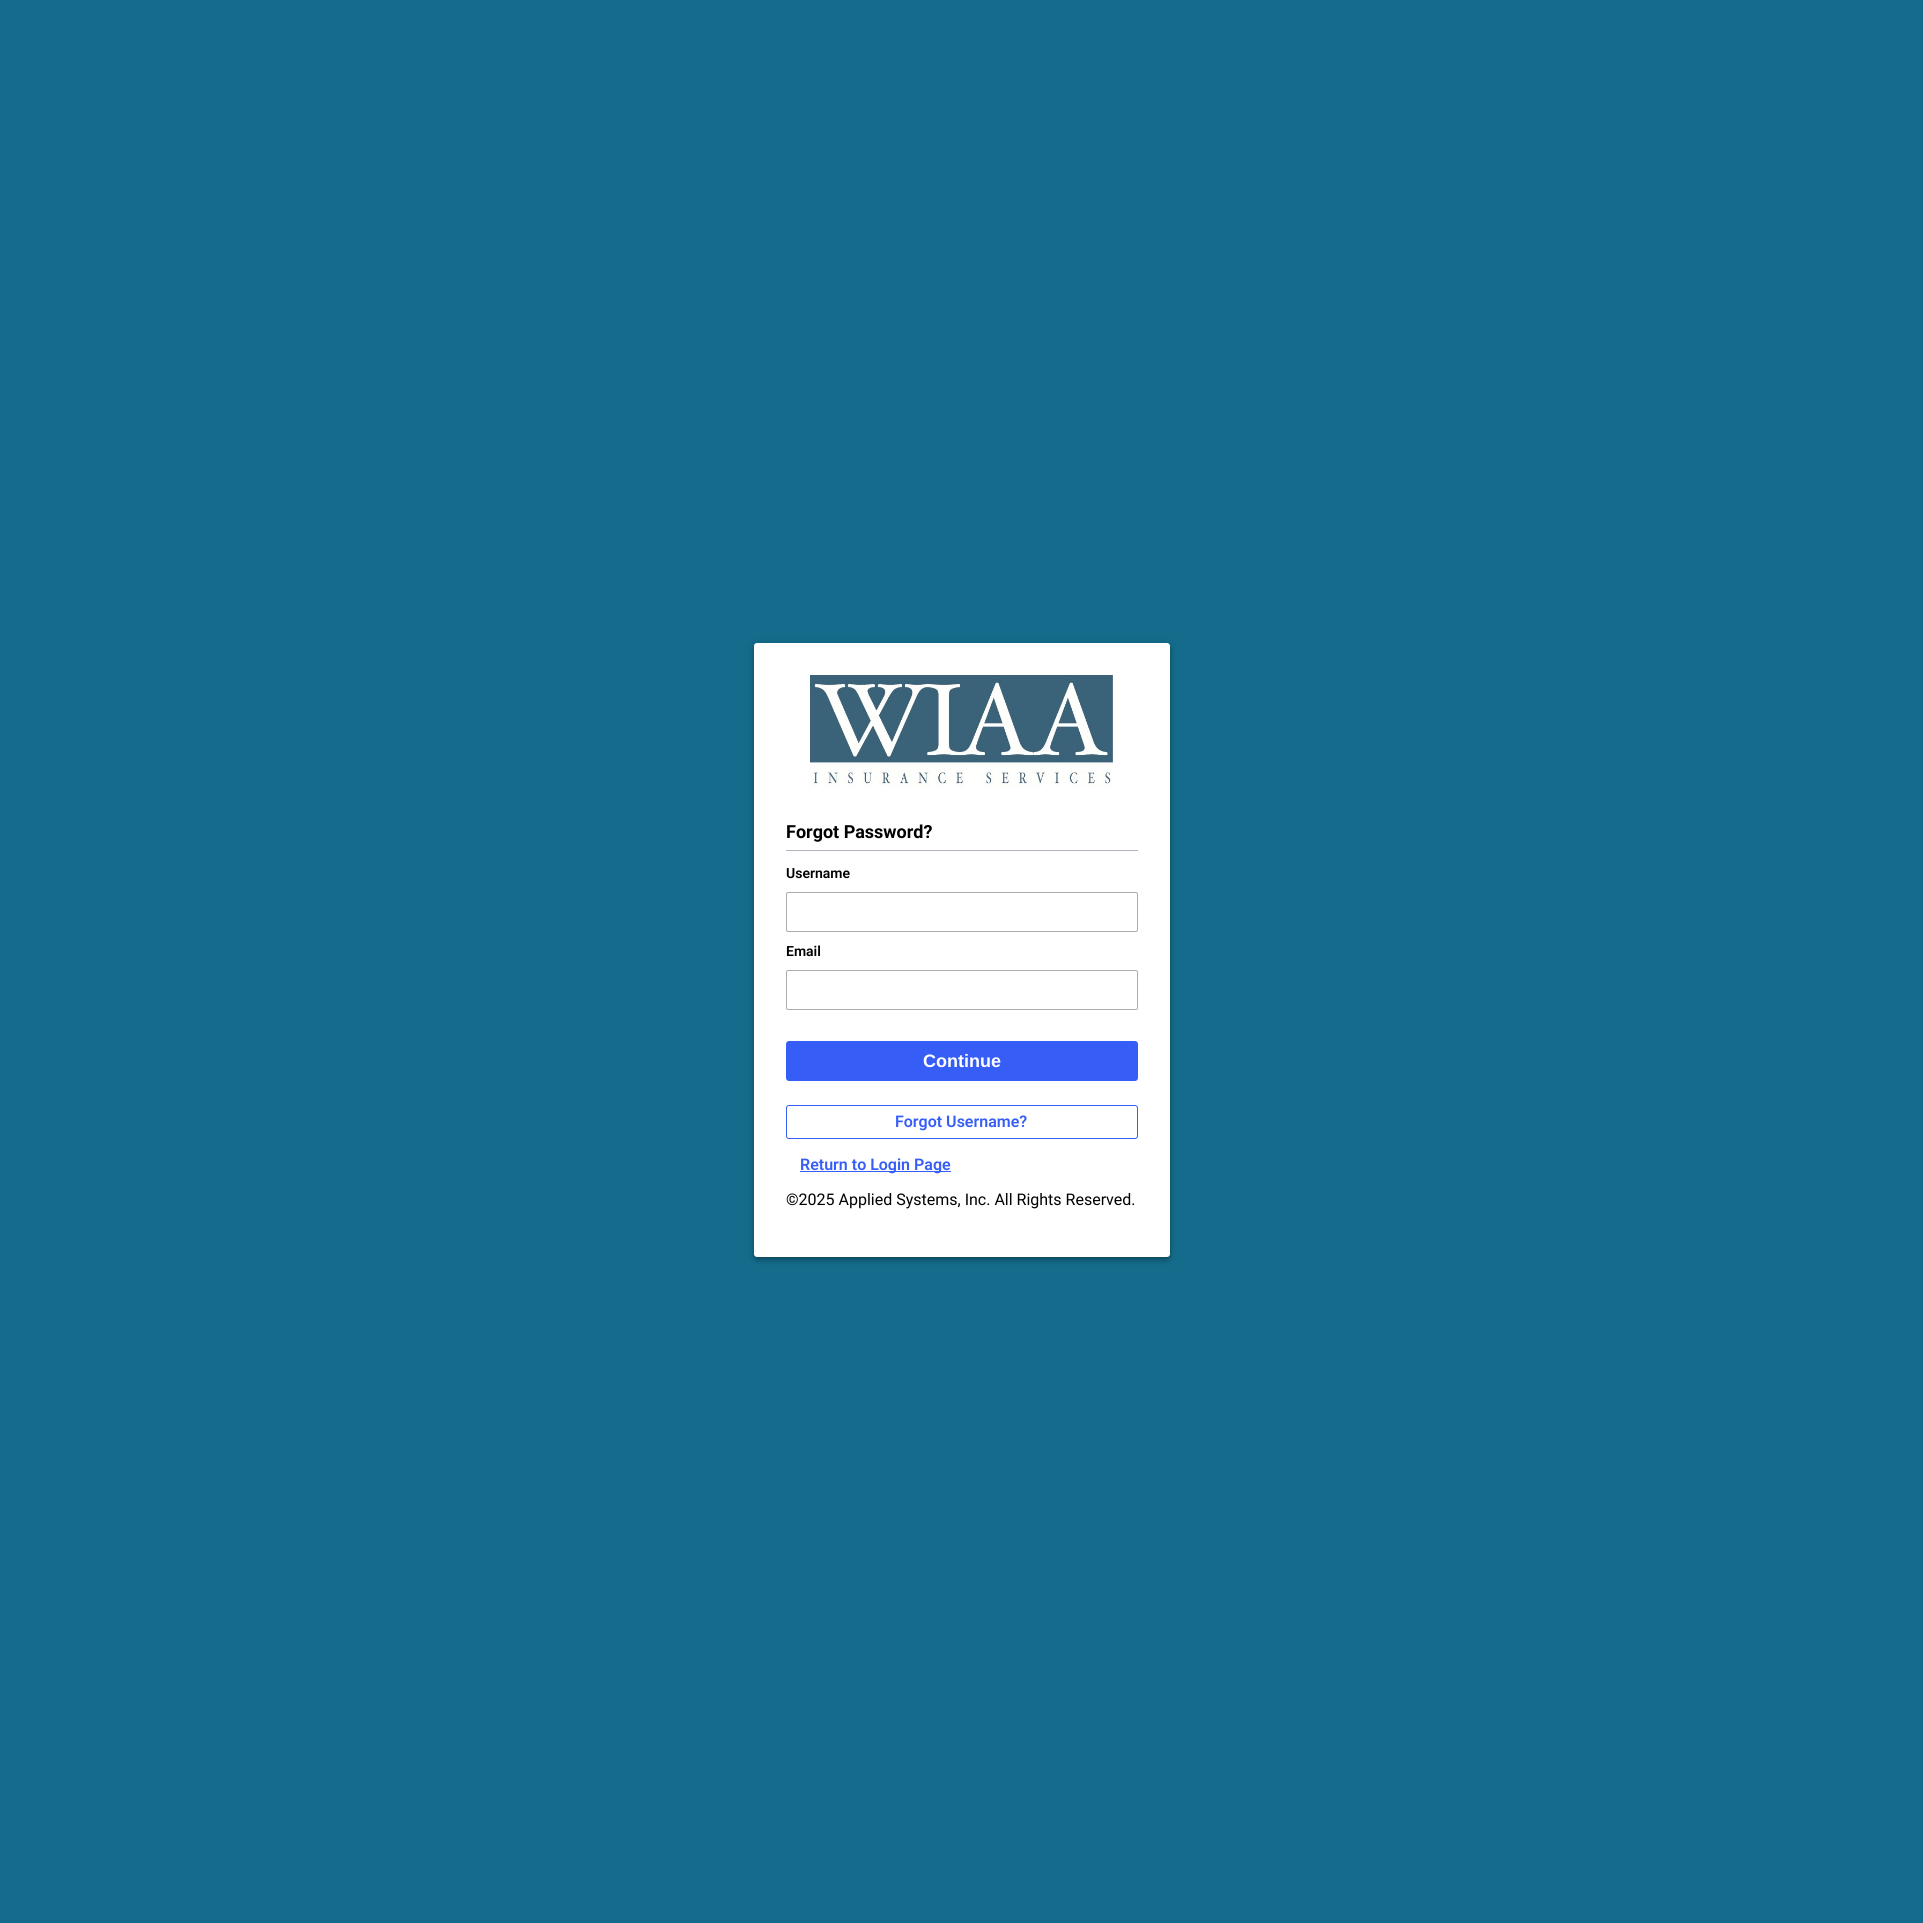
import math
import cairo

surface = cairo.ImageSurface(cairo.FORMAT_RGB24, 1923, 1923)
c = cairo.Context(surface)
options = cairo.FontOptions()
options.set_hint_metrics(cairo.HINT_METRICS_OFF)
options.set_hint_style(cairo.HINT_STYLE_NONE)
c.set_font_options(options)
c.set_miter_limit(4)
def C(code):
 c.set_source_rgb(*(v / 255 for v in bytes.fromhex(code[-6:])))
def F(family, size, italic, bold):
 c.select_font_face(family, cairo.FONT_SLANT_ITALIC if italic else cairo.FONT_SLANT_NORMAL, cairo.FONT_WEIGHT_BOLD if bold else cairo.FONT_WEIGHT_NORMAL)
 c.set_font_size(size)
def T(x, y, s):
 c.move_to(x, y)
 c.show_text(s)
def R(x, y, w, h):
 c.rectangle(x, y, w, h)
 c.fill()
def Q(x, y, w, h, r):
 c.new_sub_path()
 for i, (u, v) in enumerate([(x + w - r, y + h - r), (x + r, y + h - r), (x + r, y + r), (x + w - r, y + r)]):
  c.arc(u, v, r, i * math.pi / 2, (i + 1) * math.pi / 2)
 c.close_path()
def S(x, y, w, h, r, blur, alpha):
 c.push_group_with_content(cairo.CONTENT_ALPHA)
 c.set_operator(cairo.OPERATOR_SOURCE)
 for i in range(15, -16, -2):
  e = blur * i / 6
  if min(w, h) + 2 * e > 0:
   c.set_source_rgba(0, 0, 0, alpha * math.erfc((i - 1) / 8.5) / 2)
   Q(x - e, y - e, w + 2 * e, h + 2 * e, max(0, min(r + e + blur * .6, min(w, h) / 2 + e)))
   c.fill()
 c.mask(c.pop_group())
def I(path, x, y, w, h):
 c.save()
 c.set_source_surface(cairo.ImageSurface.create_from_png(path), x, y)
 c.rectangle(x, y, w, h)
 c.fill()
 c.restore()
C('146b8b')
c.paint()
C('000000')
S(754,644,416,614,3,5,.12)
S(754,647,416,614,3,2.5,.14)
S(755,646,414,612,2,2,.2)
C('ffffff')
Q(754,643,416,614,3)
c.fill()
I('1.png',810,675,303,112)
C('b0b4bf')
R(786,850,352,1)
F('Roboto',18,0,1)
C('000000')
T(786,838,'Forgot Password?')
F('Roboto SemiBold',14,0,0)
T(786,878,'Username')
Q(786.5,892.5,351,39,1.5)
C('acacac')
c.set_line_width(1)
c.stroke()
C('000000')
T(786,956,'Email')
Q(786.5,970.5,351,39,1.5)
C('acacac')
c.stroke()
C('365ef6')
Q(786,1041,352,40,3)
c.fill()
F('Liberation Sans',18,0,1)
C('ffffff')
T(923,1067,'Continue')
Q(786.5,1105.5,351,33,2.5)
C('365ef6')
c.stroke()
F('Roboto SemiBold',16,0,0)
T(895,1127,'Forgot Username?')
R(800,1171,151,1)
T(800,1170,'Return to Login Page')
F('Roboto',16,0,0)
C('000000')
T(786,1205,'©2025 Applied Systems, Inc. All Rights Reserved.')
surface.write_to_png('o.png')
